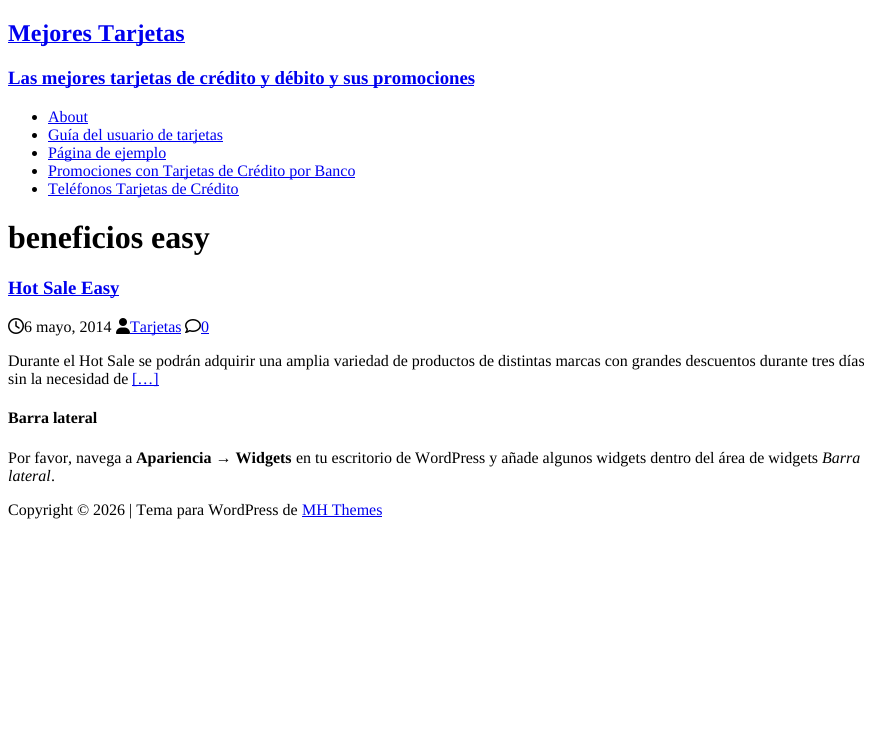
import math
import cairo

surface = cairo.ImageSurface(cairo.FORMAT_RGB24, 892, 735)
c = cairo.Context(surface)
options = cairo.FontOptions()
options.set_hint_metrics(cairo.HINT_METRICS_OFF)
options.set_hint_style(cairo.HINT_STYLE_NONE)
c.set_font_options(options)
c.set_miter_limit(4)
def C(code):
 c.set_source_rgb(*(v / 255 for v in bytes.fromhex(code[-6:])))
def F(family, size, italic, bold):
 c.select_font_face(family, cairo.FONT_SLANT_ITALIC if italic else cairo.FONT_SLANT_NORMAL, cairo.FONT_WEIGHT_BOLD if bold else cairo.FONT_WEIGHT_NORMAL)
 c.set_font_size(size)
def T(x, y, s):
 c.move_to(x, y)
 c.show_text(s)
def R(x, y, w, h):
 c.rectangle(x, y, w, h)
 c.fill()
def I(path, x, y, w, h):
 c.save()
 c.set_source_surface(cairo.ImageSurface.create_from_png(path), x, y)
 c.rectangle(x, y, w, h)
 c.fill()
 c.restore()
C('ffffff')
c.paint()
C('0000ee')
R(8,42,177,1)
F('Liberation Serif',24,0,1)
T(8,41,'Mejores Tarjetas')
R(8,85,466,1)
F('Liberation Serif',18.75,0,1)
T(8,84,'Las mejores tarjetas de crédito y débito y sus promociones')
C('000000')
c.new_path()
c.arc(34.5,117.5,2.5,0,2 * math.pi)
c.fill()
F('Liberation Serif',16,0,0)
C('0000ee')
T(48,122,'About')
R(48,123,40,1)
C('000000')
c.new_path()
c.arc(34.5,135.5,2.5,0,2 * math.pi)
c.fill()
C('0000ee')
R(48,141,175,1)
T(48,140,'Guía del usuario de tarjetas')
C('000000')
c.new_path()
c.arc(34.5,153.5,2.5,0,2 * math.pi)
c.fill()
C('0000ee')
R(48,159,118,1)
T(48,158,'Página de ejemplo')
C('000000')
c.new_path()
c.arc(34.5,171.5,2.5,0,2 * math.pi)
c.fill()
C('0000ee')
R(48,177,307,1)
T(48,176,'Promociones con Tarjetas de Crédito por Banco')
C('000000')
c.new_path()
c.arc(34.5,189.5,2.5,0,2 * math.pi)
c.fill()
C('0000ee')
R(48,195,191,1)
T(48,194,'Teléfonos Tarjetas de Crédito')
F('Liberation Serif',32,0,1)
C('000000')
T(8,248,'beneficios easy')
C('0000ee')
R(8,295,111,1)
F('Liberation Serif',18.75,0,1)
T(8,294,'Hot Sale Easy')
I('1.png',8,318,16,16)
F('Liberation Serif',16,0,0)
C('000000')
T(24,332,'6 mayo, 2014')
I('2.png',116,318,14,16)
C('0000ee')
R(130,333,51,1)
T(130,332,'Tarjetas')
I('3.png',185,319,16,14)
T(201,332,'0')
R(201,333,8,1)
C('000000')
T(8,366,'Durante el Hot Sale se podrán adquirir una amplia variedad de productos de distintas marcas con grandes descuentos durante tres días')
T(8,384,'sin la necesidad de')
C('0000ee')
R(132,385,27,1)
T(132,384,'[…]')
F('Liberation Serif',16,0,1)
C('000000')
T(8,423,'Barra lateral')
F('Liberation Serif',16,0,0)
T(8,463,'Por favor, navega a')
F('Liberation Serif',16,0,1)
T(136,463,'Apariencia → Widgets')
F('Liberation Serif',16,0,0)
T(296,463,'en tu escritorio de WordPress y añade algunos widgets dentro del área de widgets')
F('Liberation Serif',16,1,0)
T(822,463,'Barra')
T(8,481,'lateral')
F('Liberation Serif',16,0,0)
T(51,481,'.')
T(8,515,'Copyright © 2026 | Tema para WordPress de')
C('0000ee')
T(302,515,'MH Themes')
R(302,516,80,1)
surface.write_to_png('o.png')
